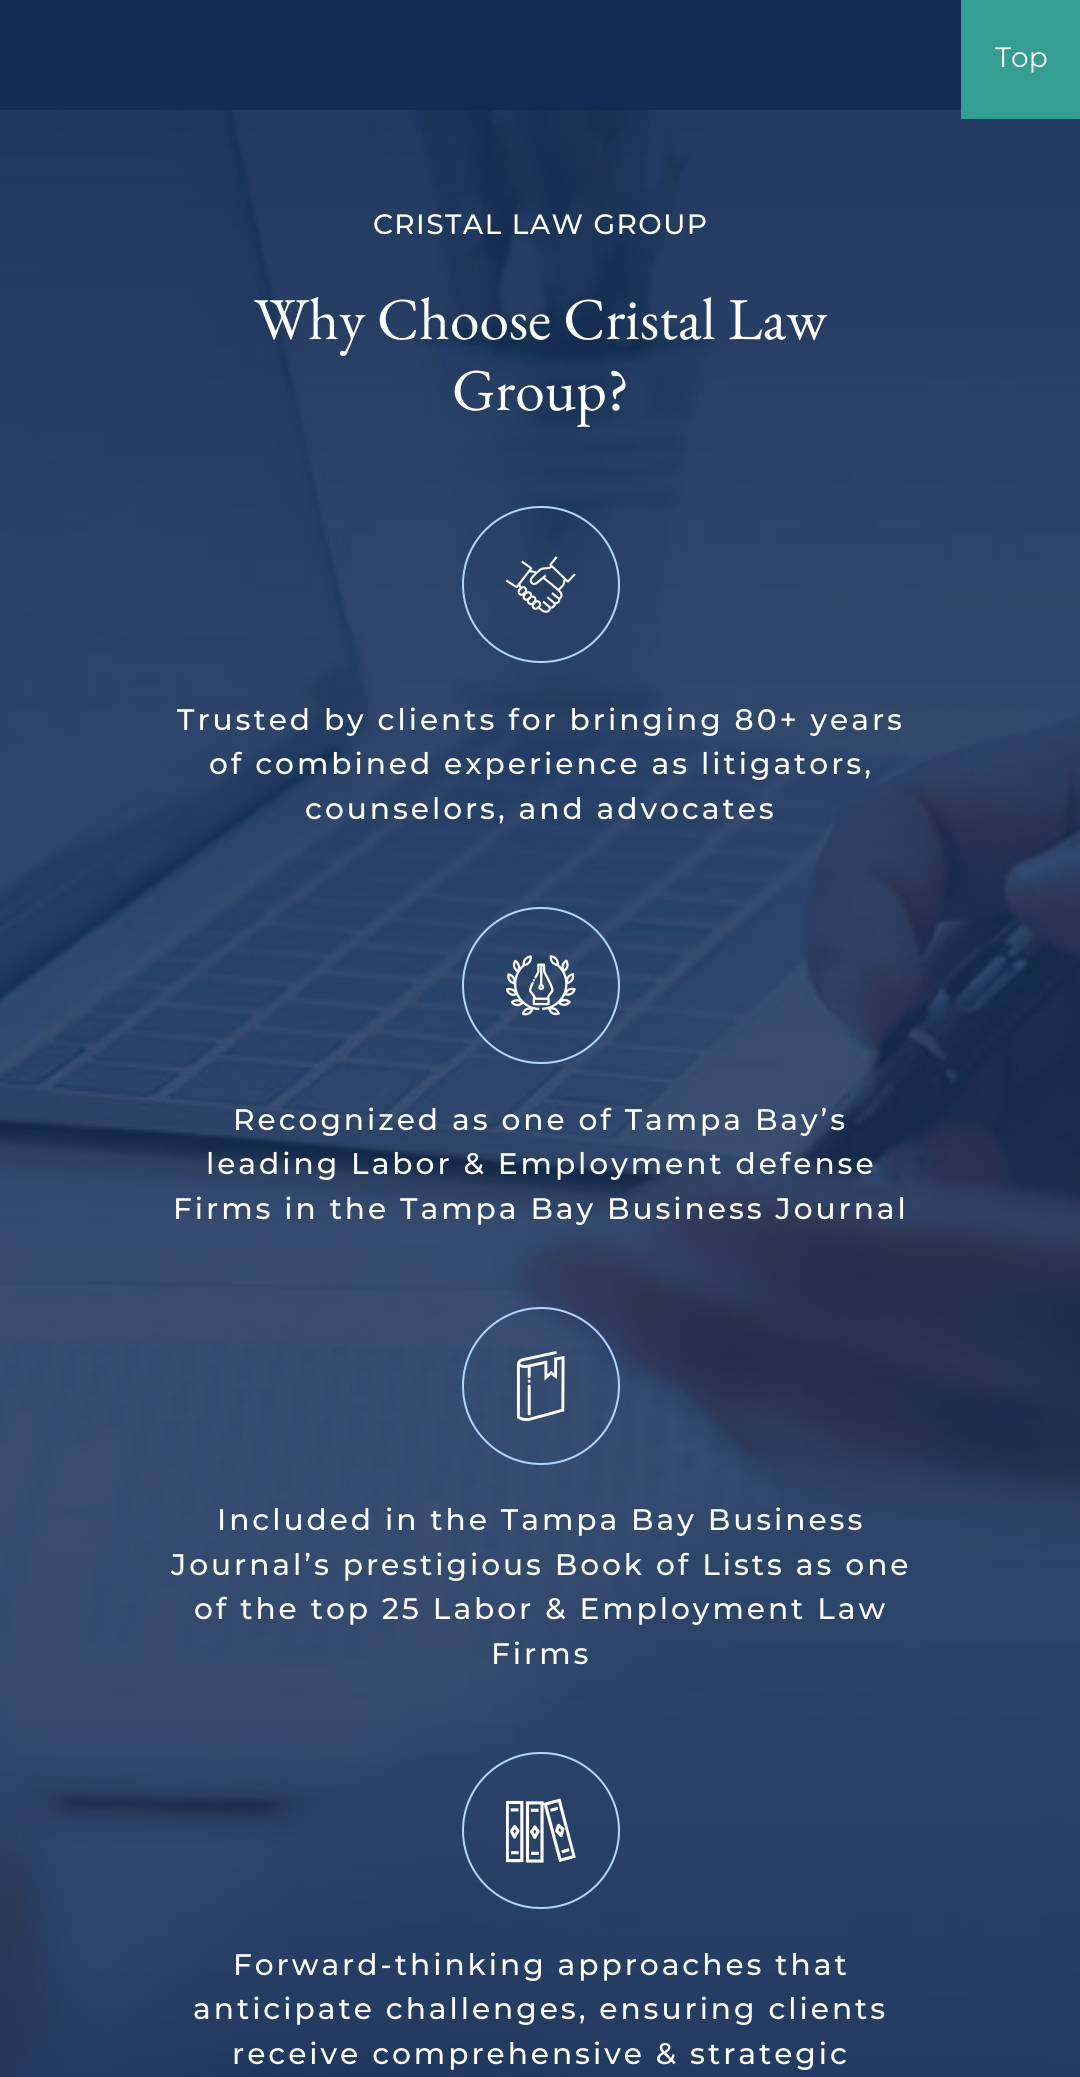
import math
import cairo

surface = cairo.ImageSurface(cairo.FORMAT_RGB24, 1080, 2077)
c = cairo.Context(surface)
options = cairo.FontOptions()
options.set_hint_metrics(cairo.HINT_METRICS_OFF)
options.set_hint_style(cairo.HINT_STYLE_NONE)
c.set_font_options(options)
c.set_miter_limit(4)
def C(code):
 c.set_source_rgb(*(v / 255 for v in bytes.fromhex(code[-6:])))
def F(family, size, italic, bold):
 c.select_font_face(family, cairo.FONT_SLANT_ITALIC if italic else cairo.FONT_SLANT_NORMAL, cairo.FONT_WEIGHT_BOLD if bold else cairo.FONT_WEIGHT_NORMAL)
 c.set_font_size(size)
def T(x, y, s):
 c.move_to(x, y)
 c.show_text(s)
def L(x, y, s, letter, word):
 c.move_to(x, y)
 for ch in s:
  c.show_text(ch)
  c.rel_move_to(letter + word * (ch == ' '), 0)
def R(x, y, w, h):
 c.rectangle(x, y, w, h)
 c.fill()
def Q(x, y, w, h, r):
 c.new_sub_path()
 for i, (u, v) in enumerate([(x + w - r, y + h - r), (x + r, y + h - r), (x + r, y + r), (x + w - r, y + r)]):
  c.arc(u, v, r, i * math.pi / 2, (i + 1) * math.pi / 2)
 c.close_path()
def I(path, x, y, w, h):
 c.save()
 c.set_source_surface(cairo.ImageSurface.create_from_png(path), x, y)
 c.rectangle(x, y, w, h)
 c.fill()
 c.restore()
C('ffffff')
c.paint()
I('1.png',0,110,1080,1967)
C('349e92')
R(961,0,119,119)
F('Montserrat',28,0,0)
C('ffffff')
T(995,67,'Top')
C('122c56')
R(0,0,961,110)
F('Montserrat Medium',28,0,0)
C('ffffff')
L(373,234,'CRISTAL LAW GROUP',1.4,0)
F('EB Garamond',59.5,0,0)
T(254,339,'Why Choose Cristal Law')
T(452,410,'Group?')
Q(463,507,156,155,77.5)
C('b2d5ff')
c.stroke()
I('2.png',506,556,70,57)
F('Montserrat Medium',29.7,0,0)
C('ffffff')
L(177,730,'Trusted by clients for bringing 80+ years',2.95,0)
L(209,774,'of combined experience as litigators,',2.95,0)
L(305,819,'counselors, and advocates',2.95,0)
Q(463,908,156,155,77.5)
C('b2d5ff')
c.stroke()
I('3.png',506,955,70,61)
C('ffffff')
L(233,1130,'Recognized as one of Tampa Bay’s',2.95,0)
L(206,1174,'leading Labor & Employment defense',2.95,0)
L(173,1219,'Firms in the Tampa Bay Business Journal',2.95,0)
c.new_path()
c.arc(541,1386,78,0,2 * math.pi)
C('b2d5ff')
c.stroke()
I('4.png',516,1351,49,70)
C('ffffff')
L(217,1530,'Included in the Tampa Bay Business',2.95,0)
L(171,1575,'Journal’s prestigious Book of Lists as one',2.95,0)
L(194,1619,'of the top 25 Labor & Employment Law',2.95,0)
L(491,1664,'Firms',2.95,0)
Q(463,1753,156,155,77.5)
C('b2d5ff')
c.stroke()
I('5.png',506,1798,70,65)
C('ffffff')
L(233,1975,'Forward-thinking approaches that',2.95,0)
L(193,2019,'anticipate challenges, ensuring clients',2.95,0)
L(232,2064,'receive comprehensive & strategic',2.95,0)
surface.write_to_png('o.png')
